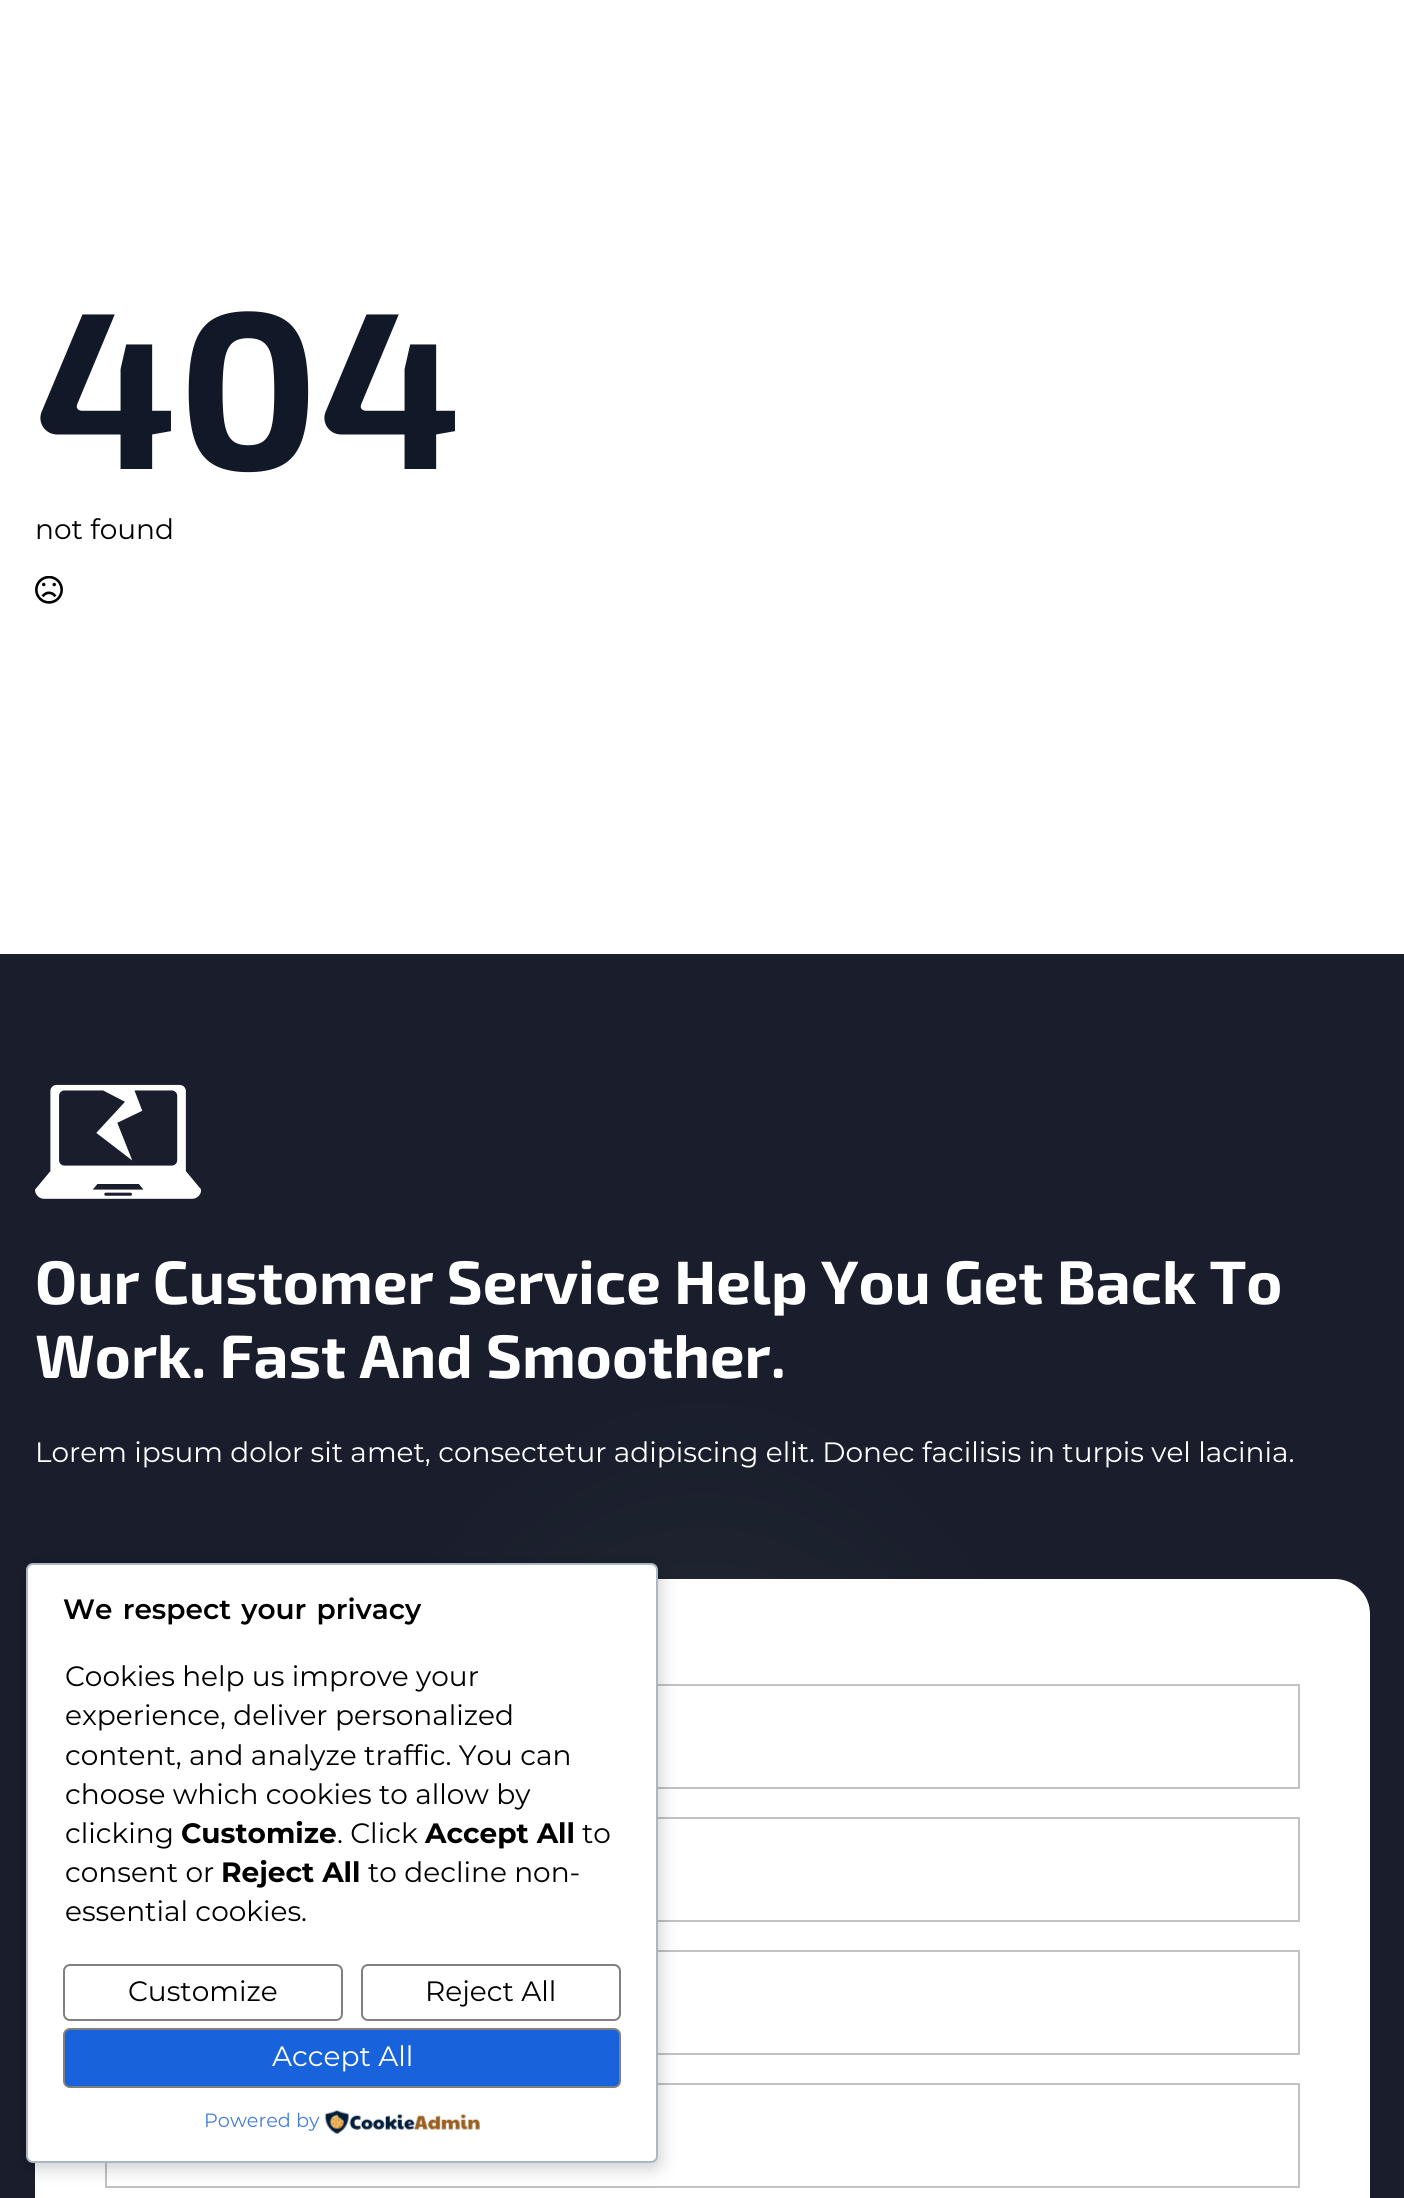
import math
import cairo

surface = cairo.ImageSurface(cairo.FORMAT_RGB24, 1404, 2198)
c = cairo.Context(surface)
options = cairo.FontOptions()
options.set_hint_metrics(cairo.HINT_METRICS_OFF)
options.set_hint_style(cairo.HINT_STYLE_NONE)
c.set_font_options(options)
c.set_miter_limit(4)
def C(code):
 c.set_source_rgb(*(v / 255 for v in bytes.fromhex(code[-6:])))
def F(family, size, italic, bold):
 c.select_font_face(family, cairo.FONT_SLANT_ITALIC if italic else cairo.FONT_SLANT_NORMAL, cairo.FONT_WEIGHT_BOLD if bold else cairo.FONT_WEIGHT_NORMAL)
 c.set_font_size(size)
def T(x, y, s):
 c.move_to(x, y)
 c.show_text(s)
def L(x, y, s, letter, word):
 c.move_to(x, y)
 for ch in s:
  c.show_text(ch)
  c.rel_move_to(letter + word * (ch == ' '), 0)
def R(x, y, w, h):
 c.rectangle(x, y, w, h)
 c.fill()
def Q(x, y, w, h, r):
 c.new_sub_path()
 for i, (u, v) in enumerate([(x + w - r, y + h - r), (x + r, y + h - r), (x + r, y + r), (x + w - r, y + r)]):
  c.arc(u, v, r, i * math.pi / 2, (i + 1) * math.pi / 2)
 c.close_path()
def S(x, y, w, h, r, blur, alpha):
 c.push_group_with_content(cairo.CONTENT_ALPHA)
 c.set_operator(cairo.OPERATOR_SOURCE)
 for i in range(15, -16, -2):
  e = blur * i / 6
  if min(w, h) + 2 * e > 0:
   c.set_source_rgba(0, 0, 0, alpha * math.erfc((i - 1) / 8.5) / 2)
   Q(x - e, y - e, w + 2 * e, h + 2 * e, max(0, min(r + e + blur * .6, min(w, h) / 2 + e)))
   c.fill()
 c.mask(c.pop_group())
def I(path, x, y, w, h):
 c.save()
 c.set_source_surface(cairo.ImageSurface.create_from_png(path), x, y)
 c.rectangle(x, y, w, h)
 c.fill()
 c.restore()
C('ffffff')
c.paint()
F('Exo 2',224,0,1)
C('111827')
T(35,469,'404')
F('Montserrat',28,0,0)
C('000000')
T(35,539,'not found')
I('1.png',35,576,28,28)
gradient = cairo.RadialGradient(0,0,0,0,0,1)
gradient.set_matrix(cairo.Matrix(1 / 994, 0, 0, 1 / 1856, -1 * 703 / 994, -1 * 2266 / 1856))
gradient.add_color_stop_rgba(.2,0.145,0.173,0.2,1)
gradient.add_color_stop_rgba(.48,0.098,0.114,0.173,1)
c.set_source(gradient)
R(0,954,1404,1244)
I('2.png',35,1084,166,115)
F('Exo 2',61.25,0,1)
C('ffffff')
T(35,1304,'Our Customer Service Help You Get Back To')
T(35,1378,'Work. Fast And Smoother.')
F('Montserrat',28,0,0)
T(35,1462,'Lorem ipsum dolor sit amet, consectetur adipiscing elit. Donec facilisis in turpis vel lacinia.')
Q(35,1579,1335,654,35)
c.fill()
c.rectangle(106,1685,1193,103)
C('c2c2c2')
c.stroke()
c.rectangle(106,1818,1193,103)
c.stroke()
c.rectangle(106,1951,1193,103)
c.stroke()
c.rectangle(106,2084,1193,103)
c.stroke()
C('000000')
S(28,1568,632,600,7,9,.2)
C('ffffff')
Q(27,1564,630,598,6)
c.fill_preserve()
C('abb8c3')
c.stroke()
F('Montserrat SemiBold',28,0,0)
C('000000')
L(63,1619,'We respect your privacy',0,2.5)
F('Montserrat',28,0,0)
T(65,1686,'Cookies help us improve your')
T(65,1725,'experience, deliver personalized')
T(65,1765,'content, and analyze traffic. You can')
T(65,1804,'choose which cookies to allow by')
T(65,1843,'clicking')
F('Montserrat',28,0,1)
T(181,1843,'Customize')
F('Montserrat',28,0,0)
T(337,1843,'. Click')
F('Montserrat',28,0,1)
T(425,1843,'Accept All')
F('Montserrat',28,0,0)
T(582,1843,'to')
T(65,1882,'consent or')
F('Montserrat',28,0,1)
T(221,1882,'Reject All')
F('Montserrat',28,0,0)
T(368,1882,'to decline non-')
T(65,1921,'essential cookies.')
Q(64,1965,278,55,6)
C('808080')
c.stroke()
C('000000')
T(128,2001,'Customize')
Q(362,1965,258,55,6)
C('808080')
c.stroke()
C('000000')
T(425,2001,'Reject All')
C('1863dc')
Q(64,2029,556,58,6)
c.fill_preserve()
C('808080')
c.stroke()
C('ffffff')
T(272,2066,'Accept All')
F('Montserrat',19.25,0,0)
C('447cdf')
T(204,2127,'Powered by')
I('3.png',324,2110,156,24)
surface.write_to_png('o.png')
